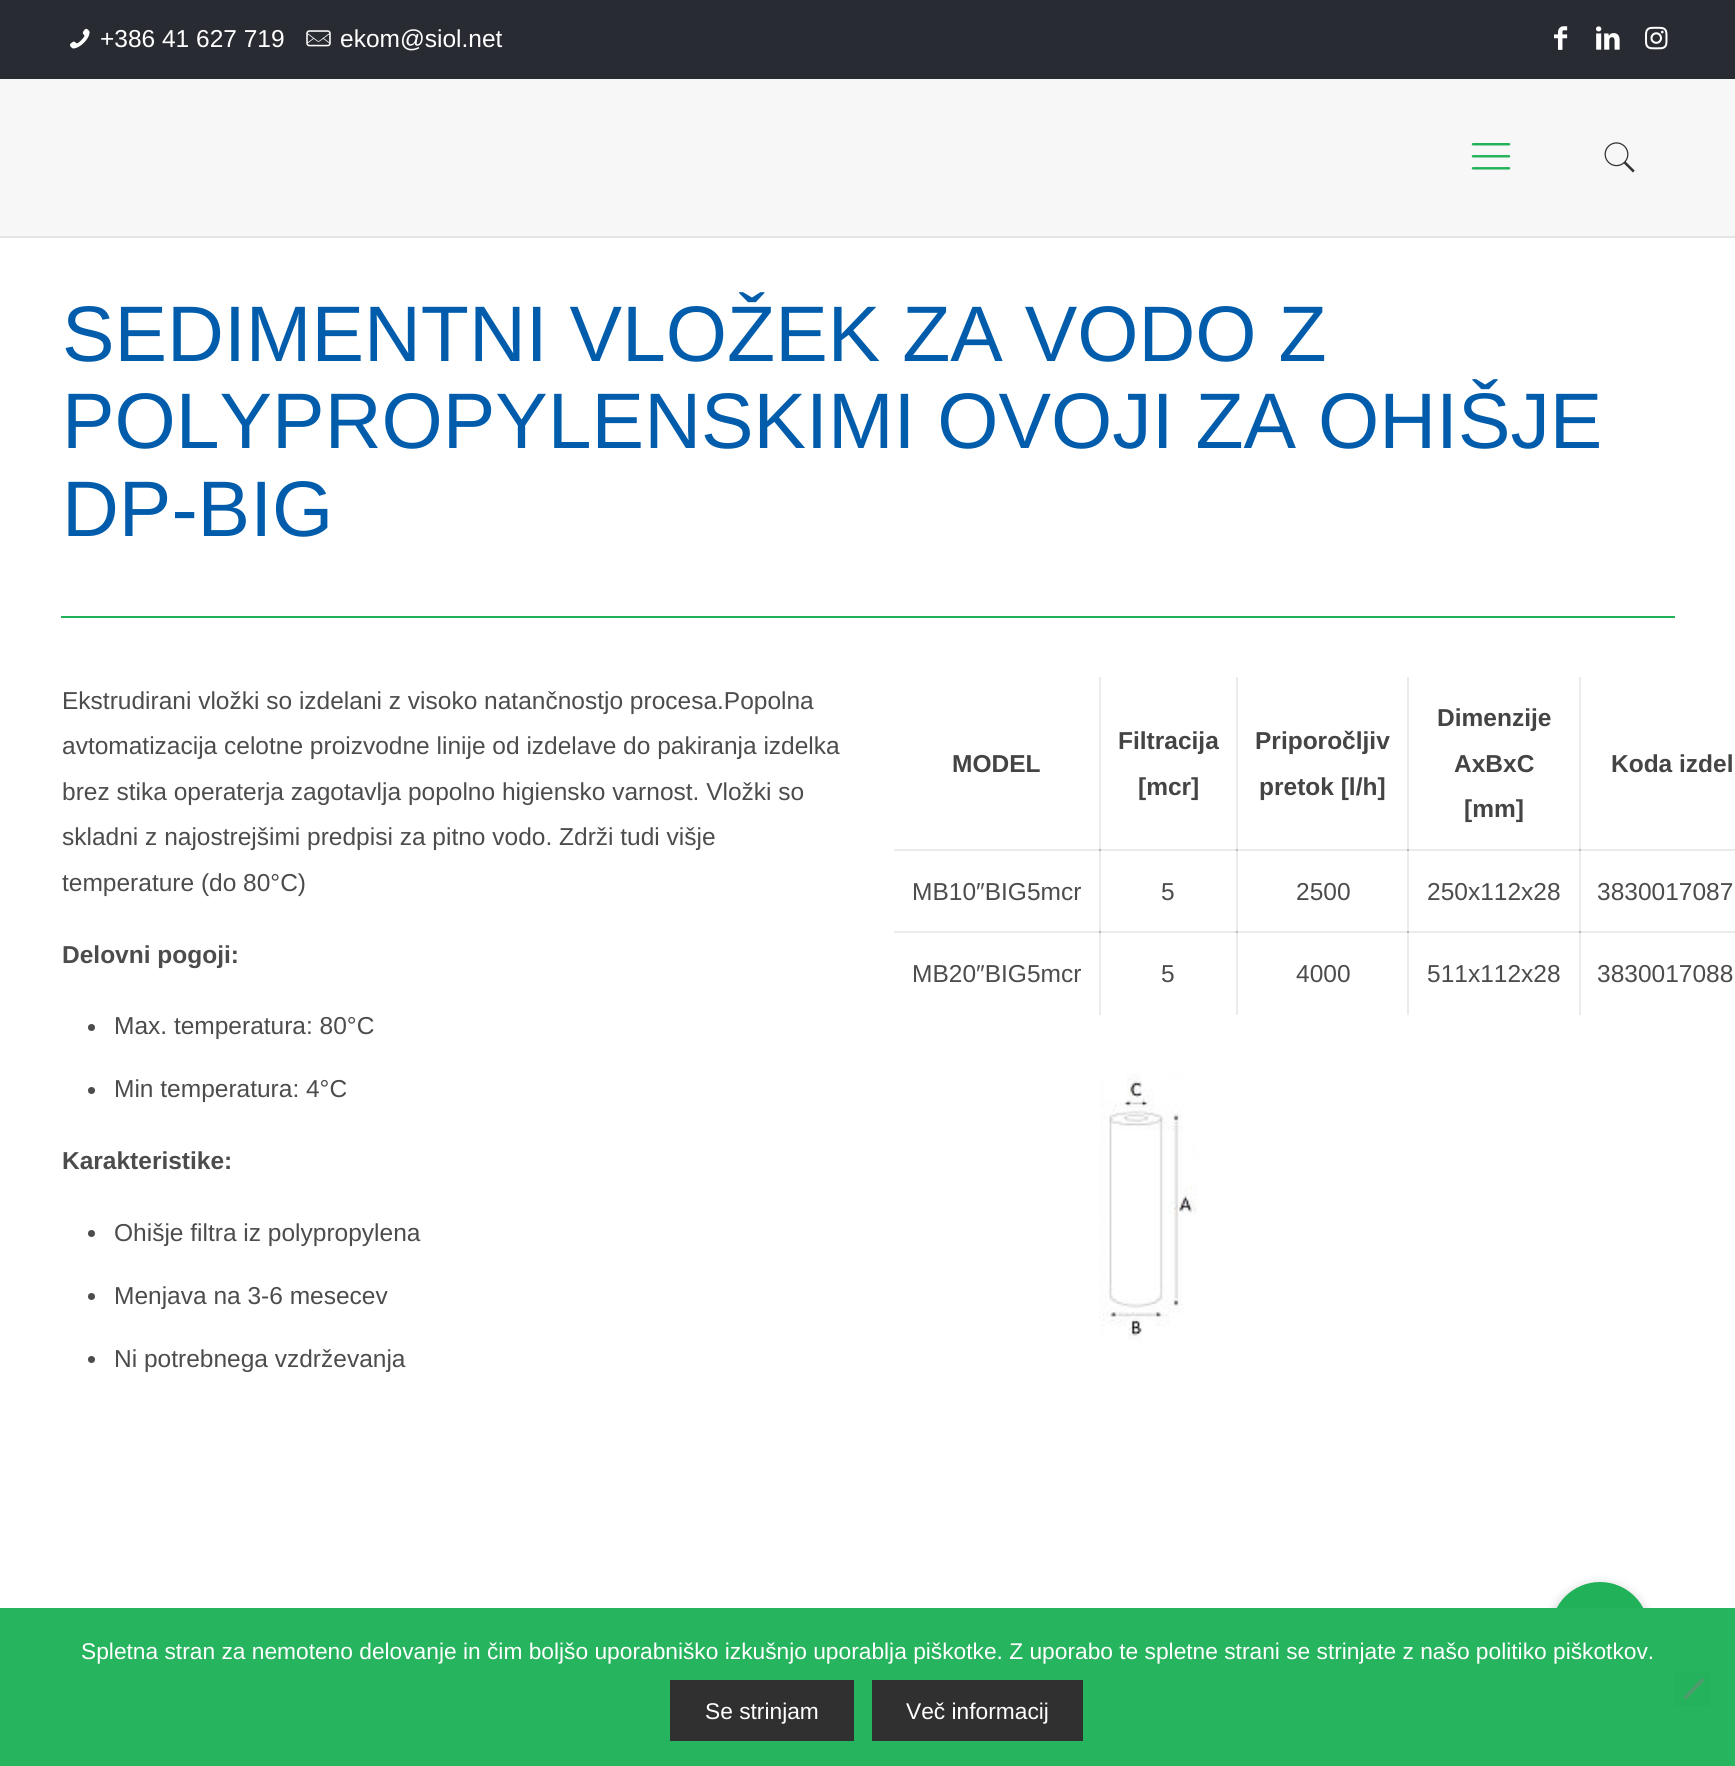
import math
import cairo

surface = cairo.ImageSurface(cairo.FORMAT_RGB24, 1735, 1766)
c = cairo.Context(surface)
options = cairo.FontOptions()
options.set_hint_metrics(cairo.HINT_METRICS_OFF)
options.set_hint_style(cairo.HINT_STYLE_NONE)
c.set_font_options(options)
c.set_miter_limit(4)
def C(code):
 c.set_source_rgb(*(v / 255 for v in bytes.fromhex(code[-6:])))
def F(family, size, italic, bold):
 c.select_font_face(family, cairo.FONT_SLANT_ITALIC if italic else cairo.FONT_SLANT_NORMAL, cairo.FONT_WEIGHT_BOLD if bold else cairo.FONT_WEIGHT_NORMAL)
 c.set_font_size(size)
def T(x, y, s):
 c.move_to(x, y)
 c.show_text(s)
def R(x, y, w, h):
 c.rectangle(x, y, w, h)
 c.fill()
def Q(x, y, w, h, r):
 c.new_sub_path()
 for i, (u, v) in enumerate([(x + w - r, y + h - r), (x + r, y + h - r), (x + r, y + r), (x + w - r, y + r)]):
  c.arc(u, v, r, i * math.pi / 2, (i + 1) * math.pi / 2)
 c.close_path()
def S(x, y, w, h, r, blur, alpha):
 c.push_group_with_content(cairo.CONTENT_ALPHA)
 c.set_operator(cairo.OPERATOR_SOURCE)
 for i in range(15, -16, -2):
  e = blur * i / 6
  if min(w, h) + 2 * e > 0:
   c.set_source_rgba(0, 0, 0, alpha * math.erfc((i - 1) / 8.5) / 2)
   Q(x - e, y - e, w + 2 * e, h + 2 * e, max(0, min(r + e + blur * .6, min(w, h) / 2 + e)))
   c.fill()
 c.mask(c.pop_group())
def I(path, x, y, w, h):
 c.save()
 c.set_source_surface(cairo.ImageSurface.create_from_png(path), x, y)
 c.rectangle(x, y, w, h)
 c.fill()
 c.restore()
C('ffffff')
c.paint()
C('ebebeb')
R(894,849,207,2)
R(1099,677,2,174)
R(1099,849,138,2)
R(1236,677,2,174)
R(1236,849,173,2)
R(1407,677,2,174)
R(1407,849,173,2)
R(1579,677,2,174)
R(1579,849,156,2)
R(894,931,207,2)
R(1099,849,2,84)
C('b7b7b7')
R(1099,849,2,2)
C('ebebeb')
R(1099,931,138,2)
R(1236,849,2,84)
C('c7c7c7')
R(1236,849,2,2)
C('b7b7b7')
R(1236,849,1,2)
C('ebebeb')
R(1236,931,173,2)
R(1407,849,2,84)
C('b7b7b7')
R(1407,849,2,2)
C('ebebeb')
R(1407,931,173,2)
R(1579,849,2,84)
C('c7c7c7')
R(1579,849,2,2)
C('b7b7b7')
R(1579,849,1,2)
C('ebebeb')
R(1579,931,156,2)
C('f7f7f7')
R(0,79,1735,157)
C('e5e5e5')
R(0,236,1735,2)
C('292b33')
R(0,0,1735,79)
I('1.png',70,28,20,21)
F('Liberation Sans',24.5,0,0)
C('ffffff')
T(100,47,'+386 41 627 719')
I('2.png',306,30,25,17)
T(340,47,'ekom@siol.net')
I('3.png',1554,26,14,24)
I('4.png',1596,26,24,24)
I('5.png',1645,26,23,24)
I('6.png',1471,143,40,27)
I('7.png',1604,142,31,31)
F('Liberation Sans',78.75,0,0)
C('015dab')
T(62,361,'SEDIMENTNI VLOŽEK ZA VODO Z')
T(62,448,'POLYPROPYLENSKIMI OVOJI ZA OHIŠJE')
T(62,536,'DP-BIG')
C('21b259')
R(61,616,1614,2)
F('Liberation Sans',24.5,0,0)
C('4c4c4c')
T(62,709,'Ekstrudirani vložki so izdelani z visoko natančnostjo procesa.Popolna')
T(62,754,'avtomatizacija celotne proizvodne linije od izdelave do pakiranja izdelka')
T(62,800,'brez stika operaterja zagotavlja popolno higiensko varnost. Vložki so')
T(62,845,'skladni z najostrejšimi predpisi za pitno vodo. Zdrži tudi višje')
T(62,891,'temperature (do 80°C)')
F('Liberation Sans',24.5,0,1)
T(62,963,'Delovni pogoji:')
c.new_path()
c.arc(91.5,1027.5,3.5,0,2 * math.pi)
c.fill()
F('Liberation Sans',24.5,0,0)
T(114,1034,'Max. temperatura: 80°C')
c.new_path()
c.arc(91.5,1090.5,3.5,0,2 * math.pi)
c.fill()
T(114,1097,'Min temperatura: 4°C')
F('Liberation Sans',24.5,0,1)
T(62,1169,'Karakteristike:')
c.new_path()
c.arc(91.5,1233.5,3.5,0,2 * math.pi)
c.fill()
F('Liberation Sans',24.5,0,0)
T(114,1241,'Ohišje filtra iz polypropylena')
c.new_path()
c.arc(91.5,1296.5,3.5,0,2 * math.pi)
c.fill()
T(114,1304,'Menjava na 3-6 mesecev')
c.new_path()
c.arc(91.5,1359.5,3.5,0,2 * math.pi)
c.fill()
T(114,1367,'Ni potrebnega vzdrževanja')
F('Liberation Sans',24.5,0,1)
C('444444')
T(952,772,'MODEL')
T(1118,749,'Filtracija')
T(1138,795,'[mcr]')
T(1255,749,'Priporočljiv')
T(1259,795,'pretok [l/h]')
T(1437,726,'Dimenzije')
T(1454,772,'AxBxC')
T(1464,817,'[mm]')
T(1611,772,'Koda izdel')
F('Liberation Sans',24.5,0,0)
C('4c4c4c')
T(912,900,'MB10″BIG5mcr')
T(1161,900,'5')
T(1296,900,'2500')
T(1427,900,'250x112x28')
T(1597,900,'3830017087')
C('ebebeb')
R(1099,931,2,84)
C('b7b7b7')
R(1099,931,2,2)
C('4c4c4c')
T(912,982,'MB20″BIG5mcr')
C('ebebeb')
R(1236,931,2,84)
C('c7c7c7')
R(1236,931,2,2)
C('b7b7b7')
R(1236,931,1,2)
C('4c4c4c')
T(1161,982,'5')
C('ebebeb')
R(1407,931,2,84)
C('b7b7b7')
R(1407,931,2,2)
C('4c4c4c')
T(1296,982,'4000')
C('ebebeb')
R(1579,931,2,84)
C('c7c7c7')
R(1579,931,2,2)
C('b7b7b7')
R(1579,931,1,2)
C('4c4c4c')
T(1427,982,'511x112x28')
T(1597,982,'3830017088')
I('8.png',1099,1074,98,267)
C('000000')
S(1549,1584,101,101,50.5,5,.2)
C('21b259')
c.arc(1600,1631,49,0,2 * math.pi)
c.fill()
C('27b45e')
R(0,1608,1735,158)
F('Liberation Sans',22.75,0,0)
C('ffffff')
T(81,1659,'Spletna stran za nemoteno delovanje in čim boljšo uporabniško izkušnjo uporablja piškotke. Z uporabo te spletne strani se strinjate z našo politiko piškotkov.')
C('24b35c')
R(1675,1671,35,35)
C('549a6f')
c.new_path()
c.move_to(1702,1678)
c.line_to(1704.5,1680.5)
c.line_to(1686,1699.5)
c.line_to(1683.5,1697)
c.close_path()
c.fill()
C('303030')
R(670,1680,184,61)
C('ffffff')
T(705,1719,'Se strinjam')
C('303030')
R(872,1680,211,61)
C('ffffff')
T(906,1719,'Več informacij')
surface.write_to_png('o.png')
